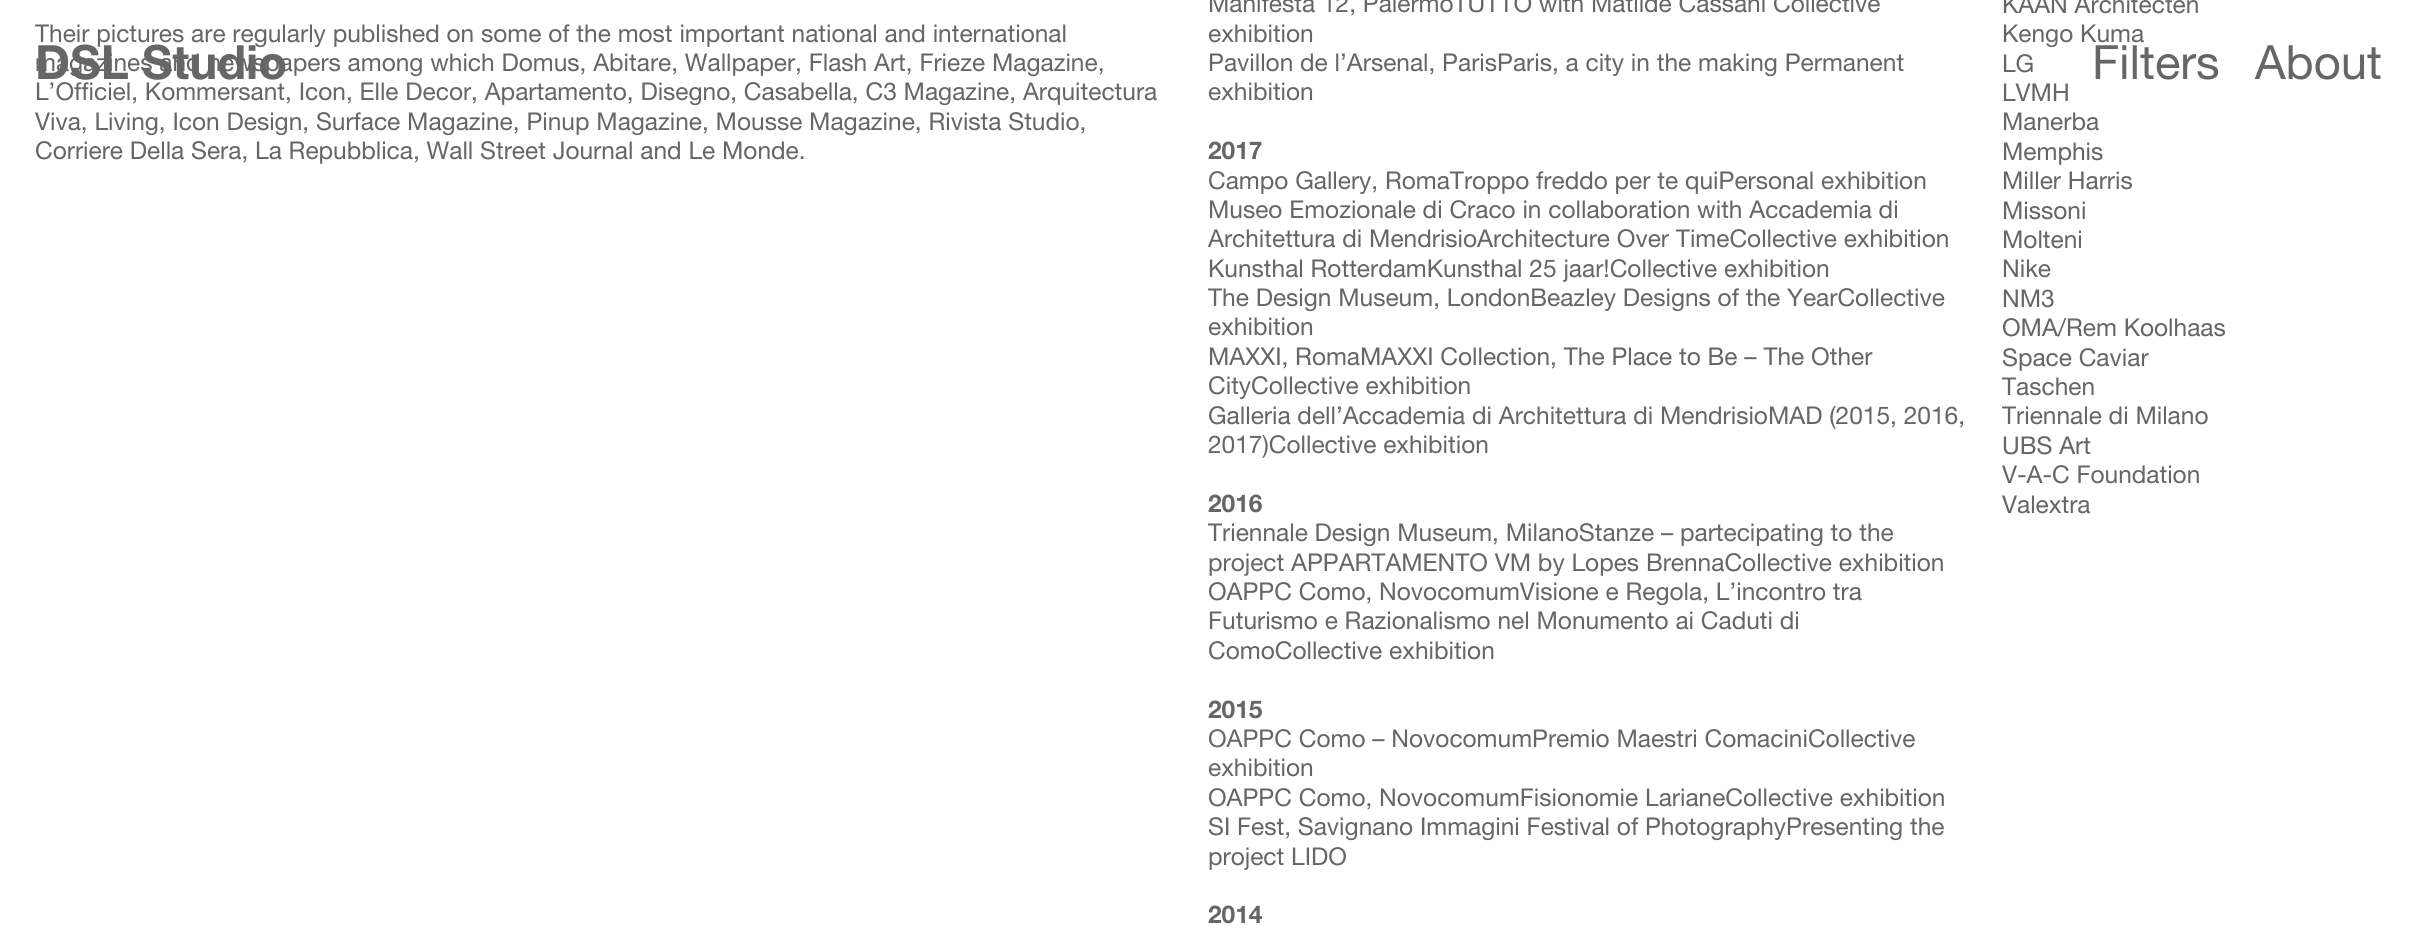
import math
import cairo

surface = cairo.ImageSurface(cairo.FORMAT_RGB24, 2416, 930)
c = cairo.Context(surface)
options = cairo.FontOptions()
options.set_hint_metrics(cairo.HINT_METRICS_OFF)
options.set_hint_style(cairo.HINT_STYLE_NONE)
c.set_font_options(options)
c.set_miter_limit(4)
def C(code):
 c.set_source_rgb(*(v / 255 for v in bytes.fromhex(code[-6:])))
def F(family, size, italic, bold):
 c.select_font_face(family, cairo.FONT_SLANT_ITALIC if italic else cairo.FONT_SLANT_NORMAL, cairo.FONT_WEIGHT_BOLD if bold else cairo.FONT_WEIGHT_NORMAL)
 c.set_font_size(size)
def T(x, y, s):
 c.move_to(x, y)
 c.show_text(s)
C('ffffff')
c.paint()
F('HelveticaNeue',24.5,0,0)
C('666666')
T(35,42,'Their pictures are regularly published on some of the most important national and international')
T(35,71,'magazines and newspapers among which Domus, Abitare, Wallpaper, Flash Art, Frieze Magazine,')
T(35,100,'L’Officiel, Kommersant, Icon, Elle Decor, Apartamento, Disegno, Casabella, C3 Magazine, Arquitectura')
T(35,130,'Viva, Living, Icon Design, Surface Magazine, Pinup Magazine, Mousse Magazine, Rivista Studio,')
T(35,159,'Corriere Della Sera, La Repubblica, Wall Street Journal and Le Monde.')
T(1208,12,'Manifesta 12, PalermoTUTTO with Matilde Cassani Collective')
T(1208,42,'exhibition')
T(1208,71,'Pavillon de l’Arsenal, ParisParis, a city in the making Permanent')
T(1208,100,'exhibition')
F('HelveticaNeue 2',24.5,0,0)
T(1208,159,'2017')
F('HelveticaNeue',24.5,0,0)
T(1208,189,'Campo Gallery, RomaTroppo freddo per te quiPersonal exhibition')
T(1208,218,'Museo Emozionale di Craco in collaboration with Accademia di')
T(1208,247,'Architettura di MendrisioArchitecture Over TimeCollective exhibition')
T(1208,277,'Kunsthal RotterdamKunsthal 25 jaar!Collective exhibition')
T(1208,306,'The Design Museum, LondonBeazley Designs of the YearCollective')
T(1208,335,'exhibition')
T(1208,365,'MAXXI, RomaMAXXI Collection, The Place to Be – The Other')
T(1208,394,'CityCollective exhibition')
T(1208,424,'Galleria dell’Accademia di Architettura di MendrisioMAD (2015, 2016,')
T(1208,453,'2017)Collective exhibition')
F('HelveticaNeue 2',24.5,0,0)
T(1208,512,'2016')
F('HelveticaNeue',24.5,0,0)
T(1208,541,'Triennale Design Museum, MilanoStanze – partecipating to the')
T(1208,571,'project APPARTAMENTO VM by Lopes BrennaCollective exhibition')
T(1208,600,'OAPPC Como, NovocomumVisione e Regola, L’incontro tra')
T(1208,629,'Futurismo e Razionalismo nel Monumento ai Caduti di')
T(1208,659,'ComoCollective exhibition')
F('HelveticaNeue 2',24.5,0,0)
T(1208,718,'2015')
F('HelveticaNeue',24.5,0,0)
T(1208,747,'OAPPC Como – NovocomumPremio Maestri ComaciniCollective')
T(1208,776,'exhibition')
T(1208,806,'OAPPC Como, NovocomumFisionomie LarianeCollective exhibition')
T(1208,835,'SI Fest, Savignano Immagini Festival of PhotographyPresenting the')
T(1208,865,'project LIDO')
F('HelveticaNeue 2',24.5,0,0)
T(1208,923,'2014')
F('HelveticaNeue',24.5,0,0)
T(2002,13,'KAAN Architecten')
T(2002,42,'Kengo Kuma')
T(2002,72,'LG')
T(2002,101,'LVMH')
T(2002,130,'Manerba')
T(2002,160,'Memphis')
T(2002,189,'Miller Harris')
T(2002,219,'Missoni')
T(2002,248,'Molteni')
T(2002,277,'Nike')
T(2002,307,'NM3')
T(2002,336,'OMA/Rem Koolhaas')
T(2002,366,'Space Caviar')
T(2002,395,'Taschen')
T(2002,424,'Triennale di Milano')
T(2002,454,'UBS Art')
T(2002,483,'V-A-C Foundation')
T(2002,513,'Valextra')
F('HelveticaNeue 2',47.25,0,0)
T(35,79,'DSL Studio')
F('HelveticaNeue',47.25,0,0)
T(2092,79,'Filters')
T(2255,79,'About')
surface.write_to_png('o.png')
